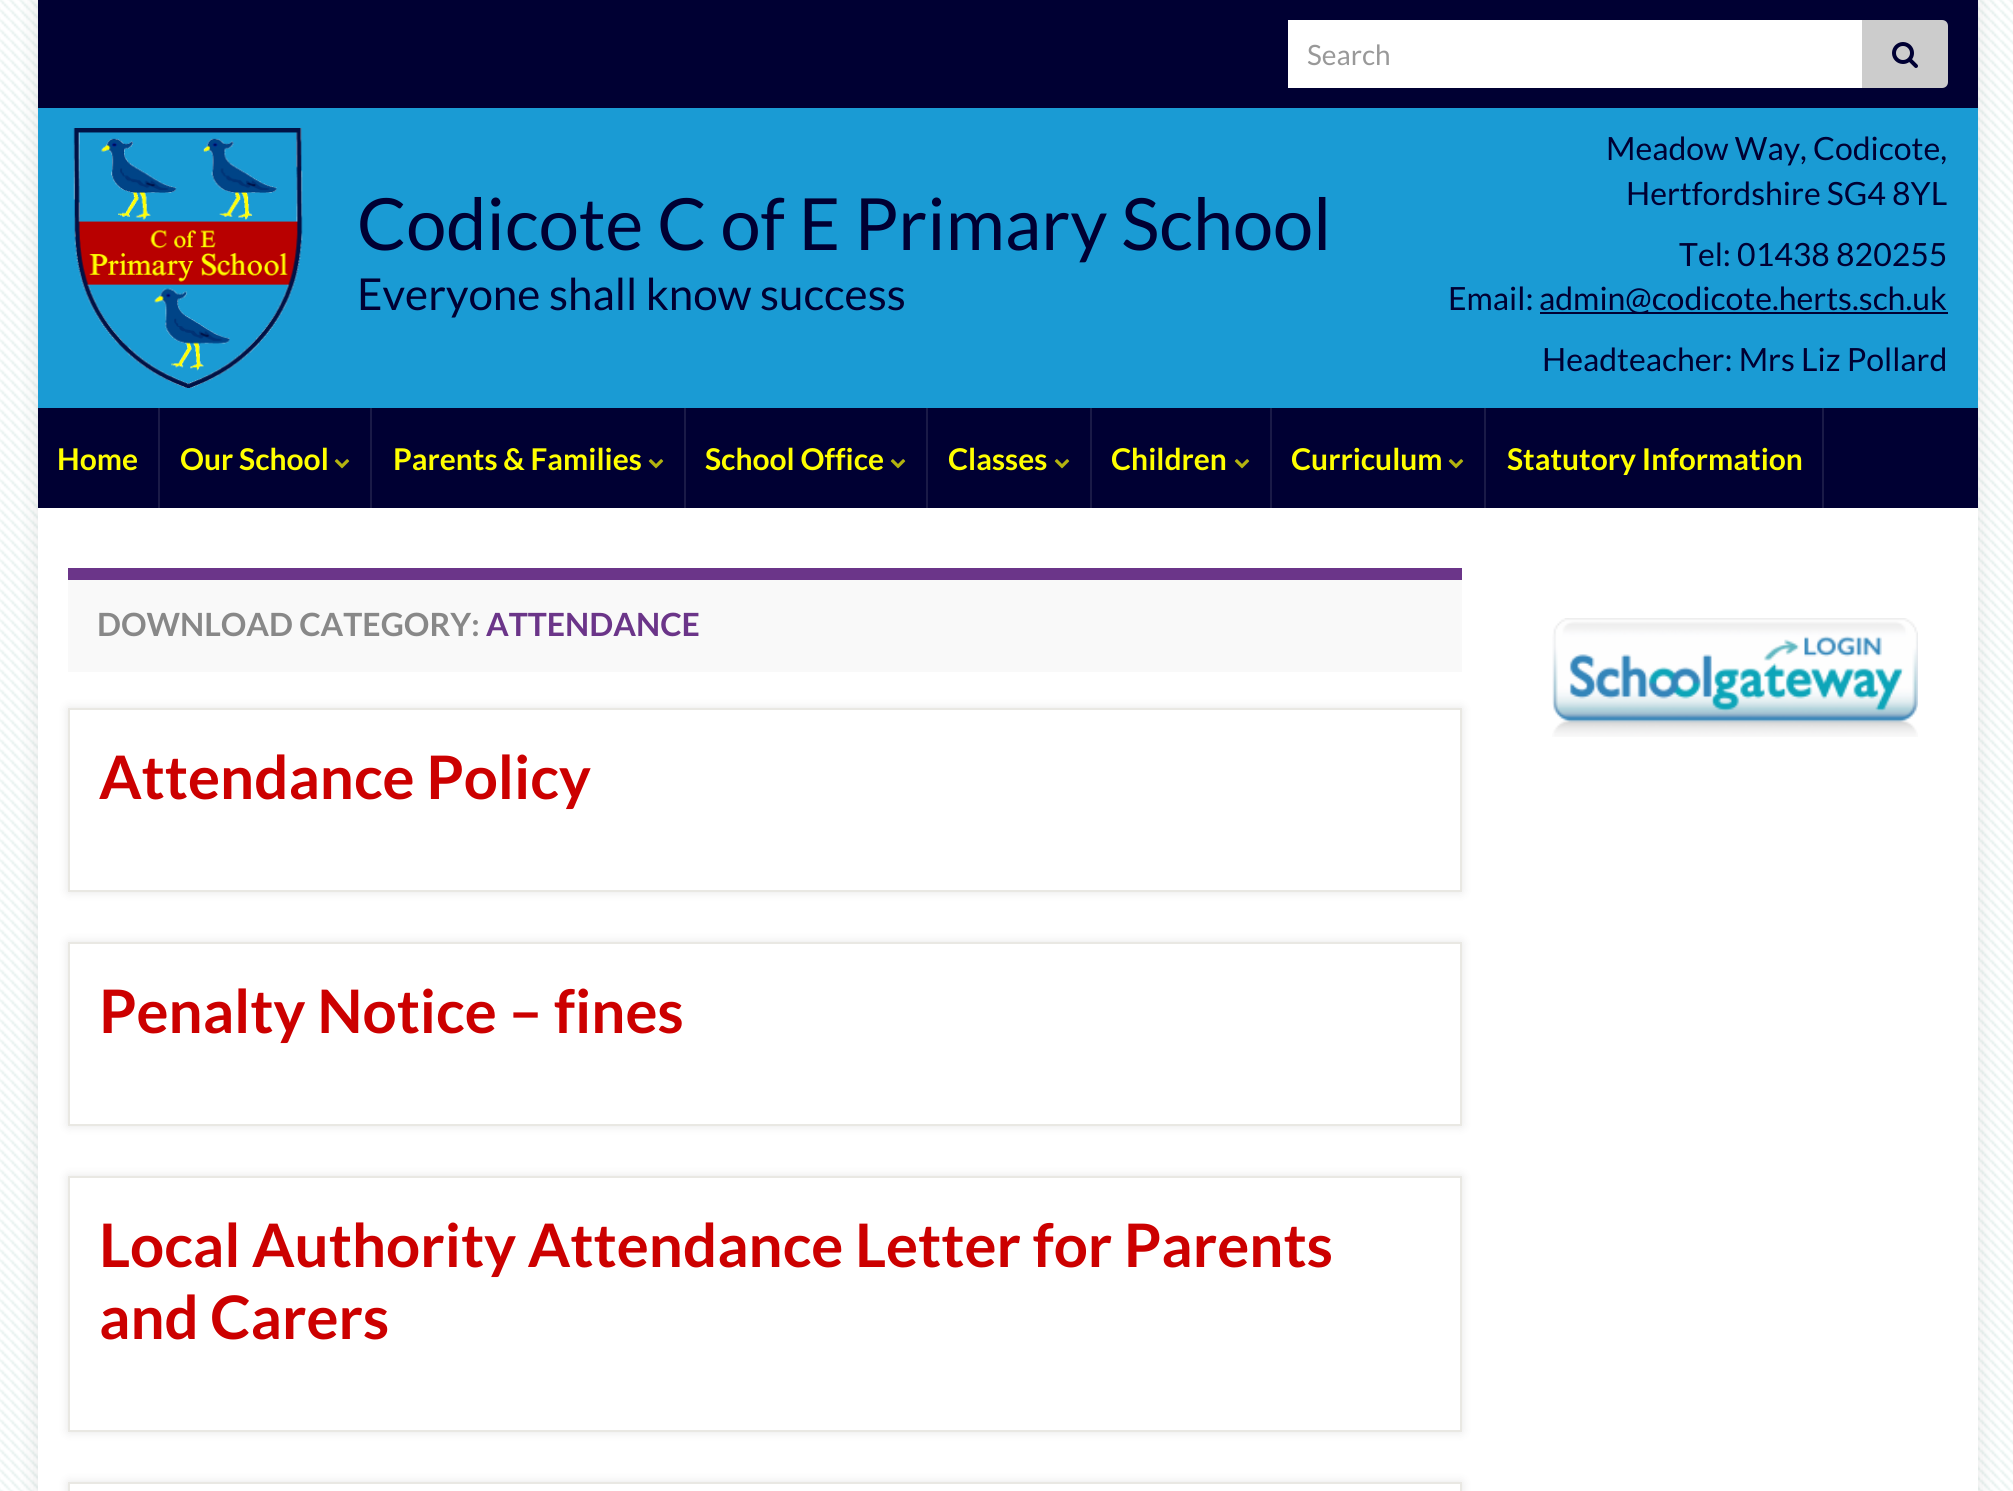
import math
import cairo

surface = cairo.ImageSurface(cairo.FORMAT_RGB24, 2013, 1491)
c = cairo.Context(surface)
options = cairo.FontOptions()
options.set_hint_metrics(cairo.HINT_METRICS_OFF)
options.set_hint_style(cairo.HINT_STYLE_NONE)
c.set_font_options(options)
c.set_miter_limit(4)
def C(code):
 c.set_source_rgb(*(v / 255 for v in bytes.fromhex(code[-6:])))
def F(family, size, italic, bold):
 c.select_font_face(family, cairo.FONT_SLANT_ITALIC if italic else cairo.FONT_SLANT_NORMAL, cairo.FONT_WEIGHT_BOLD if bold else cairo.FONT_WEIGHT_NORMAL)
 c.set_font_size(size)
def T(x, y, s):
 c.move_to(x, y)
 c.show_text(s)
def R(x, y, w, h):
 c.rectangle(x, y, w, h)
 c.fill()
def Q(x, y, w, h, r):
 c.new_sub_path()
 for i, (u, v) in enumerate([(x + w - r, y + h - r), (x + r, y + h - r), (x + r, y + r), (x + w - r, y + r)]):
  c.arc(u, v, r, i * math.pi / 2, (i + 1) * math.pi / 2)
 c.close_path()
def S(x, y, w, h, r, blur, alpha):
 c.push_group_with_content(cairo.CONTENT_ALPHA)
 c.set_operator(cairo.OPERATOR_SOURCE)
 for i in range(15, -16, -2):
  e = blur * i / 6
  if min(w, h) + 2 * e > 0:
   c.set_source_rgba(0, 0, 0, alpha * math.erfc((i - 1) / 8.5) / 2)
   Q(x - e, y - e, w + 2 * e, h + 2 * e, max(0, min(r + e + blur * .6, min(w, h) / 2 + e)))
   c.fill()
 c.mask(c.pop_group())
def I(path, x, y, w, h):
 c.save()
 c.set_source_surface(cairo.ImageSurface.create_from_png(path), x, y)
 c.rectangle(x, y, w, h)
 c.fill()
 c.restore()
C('ffffff')
c.paint()
I('1.png',0,0,2013,1491)
C('000000')
S(38,0,1940,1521,0,10,.1)
C('000033')
R(38,0,1940,108)
C('ffffff')
R(1288,20,574,68)
F('Lato',28,0,0)
C('999999')
T(1307,65,'Search')
C('cccccc')
c.new_path()
c.move_to(1862,20)
c.line_to(1942,20)
c.curve_to(1945.5,20,1948,22.5,1948,26)
c.line_to(1948,82)
c.curve_to(1948,85.5,1945.5,88,1942,88)
c.line_to(1862,88)
c.close_path()
c.fill()
I('2.png',1892,42,26,26)
C('1a9bd4')
R(38,108,1940,300)
I('3.png',73,128,230,260)
F('Lato',32,0,0)
C('000033')
T(1606,160,'Meadow Way, Codicote,')
T(1626,205,'Hertfordshire SG4 8YL')
T(1679,266,'Tel: 01438 820255')
T(1448,310,'Email:')
R(1540,312,408,2)
T(1539,310,'admin@codicote.herts.sch.uk')
T(1542,371,'Headteacher: Mrs Liz Pollard')
R(38,408,1940,100)
F('Lato',72,0,0)
T(357,250,'Codicote C of E Primary School')
F('Lato',44,0,0)
T(357,310,'Everyone shall know success')
C('1a1a47')
R(158,408,2,100)
F('Lato',30,0,1)
C('ffff00')
T(57,470,'Home')
C('1a1a47')
R(370,408,2,100)
C('ffff00')
T(180,470,'Our School')
I('4.png',334,459,16,10)
C('1a1a47')
R(684,408,2,100)
C('ffff00')
T(393,470,'Parents & Families')
I('4.png',648,459,16,10)
C('1a1a47')
R(926,408,2,100)
C('ffff00')
T(705,470,'School Office')
I('4.png',890,459,16,10)
C('1a1a47')
R(1090,408,2,100)
C('ffff00')
T(948,470,'Classes')
I('4.png',1054,459,16,10)
C('1a1a47')
R(1270,408,2,100)
C('ffff00')
T(1111,470,'Children')
I('4.png',1234,459,16,10)
C('1a1a47')
R(1484,408,2,100)
C('ffff00')
T(1291,470,'Curriculum')
I('4.png',1448,459,16,10)
C('1a1a47')
R(1822,408,2,100)
C('ffff00')
T(1507,470,'Statutory Information')
C('ffffff')
R(38,508,1940,983)
C('f9f9f9')
R(68,580,1394,92)
C('6b3589')
R(68,568,1394,12)
F('Lato',32,0,1)
C('888888')
T(97,636,'DOWNLOAD CATEGORY:')
C('6b3589')
T(486,636,'ATTENDANCE')
c.save()
c.set_fill_rule(cairo.FILL_RULE_EVEN_ODD)
c.new_path()
c.move_to(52,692)
c.line_to(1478,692)
c.line_to(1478,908)
c.line_to(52,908)
c.close_path()
c.move_to(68,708)
c.line_to(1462,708)
c.line_to(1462,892)
c.line_to(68,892)
c.close_path()
c.clip()
C('000000')
S(68,708,1394,184,0,5,.1)
c.restore()
c.rectangle(69,709,1392,182)
C('e9e8e3')
c.stroke()
F('Lato',60,0,1)
C('cc0000')
T(99,799,'Attendance Policy')
c.save()
c.set_fill_rule(cairo.FILL_RULE_EVEN_ODD)
c.new_path()
c.move_to(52,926)
c.line_to(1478,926)
c.line_to(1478,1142)
c.line_to(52,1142)
c.close_path()
c.move_to(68,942)
c.line_to(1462,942)
c.line_to(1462,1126)
c.line_to(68,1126)
c.close_path()
c.clip()
C('000000')
S(68,942,1394,184,0,5,.1)
c.restore()
c.rectangle(69,943,1392,182)
C('e9e8e3')
c.stroke()
C('cc0000')
T(99,1033,'Penalty Notice – fines')
c.save()
c.set_fill_rule(cairo.FILL_RULE_EVEN_ODD)
c.new_path()
c.move_to(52,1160)
c.line_to(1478,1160)
c.line_to(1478,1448)
c.line_to(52,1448)
c.close_path()
c.move_to(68,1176)
c.line_to(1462,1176)
c.line_to(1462,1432)
c.line_to(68,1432)
c.close_path()
c.clip()
C('000000')
S(68,1176,1394,256,0,5,.1)
c.restore()
c.rectangle(69,1177,1392,254)
C('e9e8e3')
c.stroke()
C('cc0000')
T(99,1267,'Local Authority Attendance Letter for Parents')
T(99,1339,'and Carers')
c.save()
c.set_fill_rule(cairo.FILL_RULE_EVEN_ODD)
c.new_path()
c.move_to(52,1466)
c.line_to(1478,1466)
c.line_to(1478,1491)
c.line_to(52,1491)
c.close_path()
c.move_to(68,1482)
c.line_to(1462,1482)
c.line_to(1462,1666)
c.line_to(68,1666)
c.close_path()
c.clip()
C('000000')
S(68,1482,1394,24,0,5,.1)
c.restore()
c.rectangle(69,1483,1392,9)
C('e9e8e3')
c.stroke()
I('5.png',1552,618,366,119)
surface.write_to_png('o.png')
